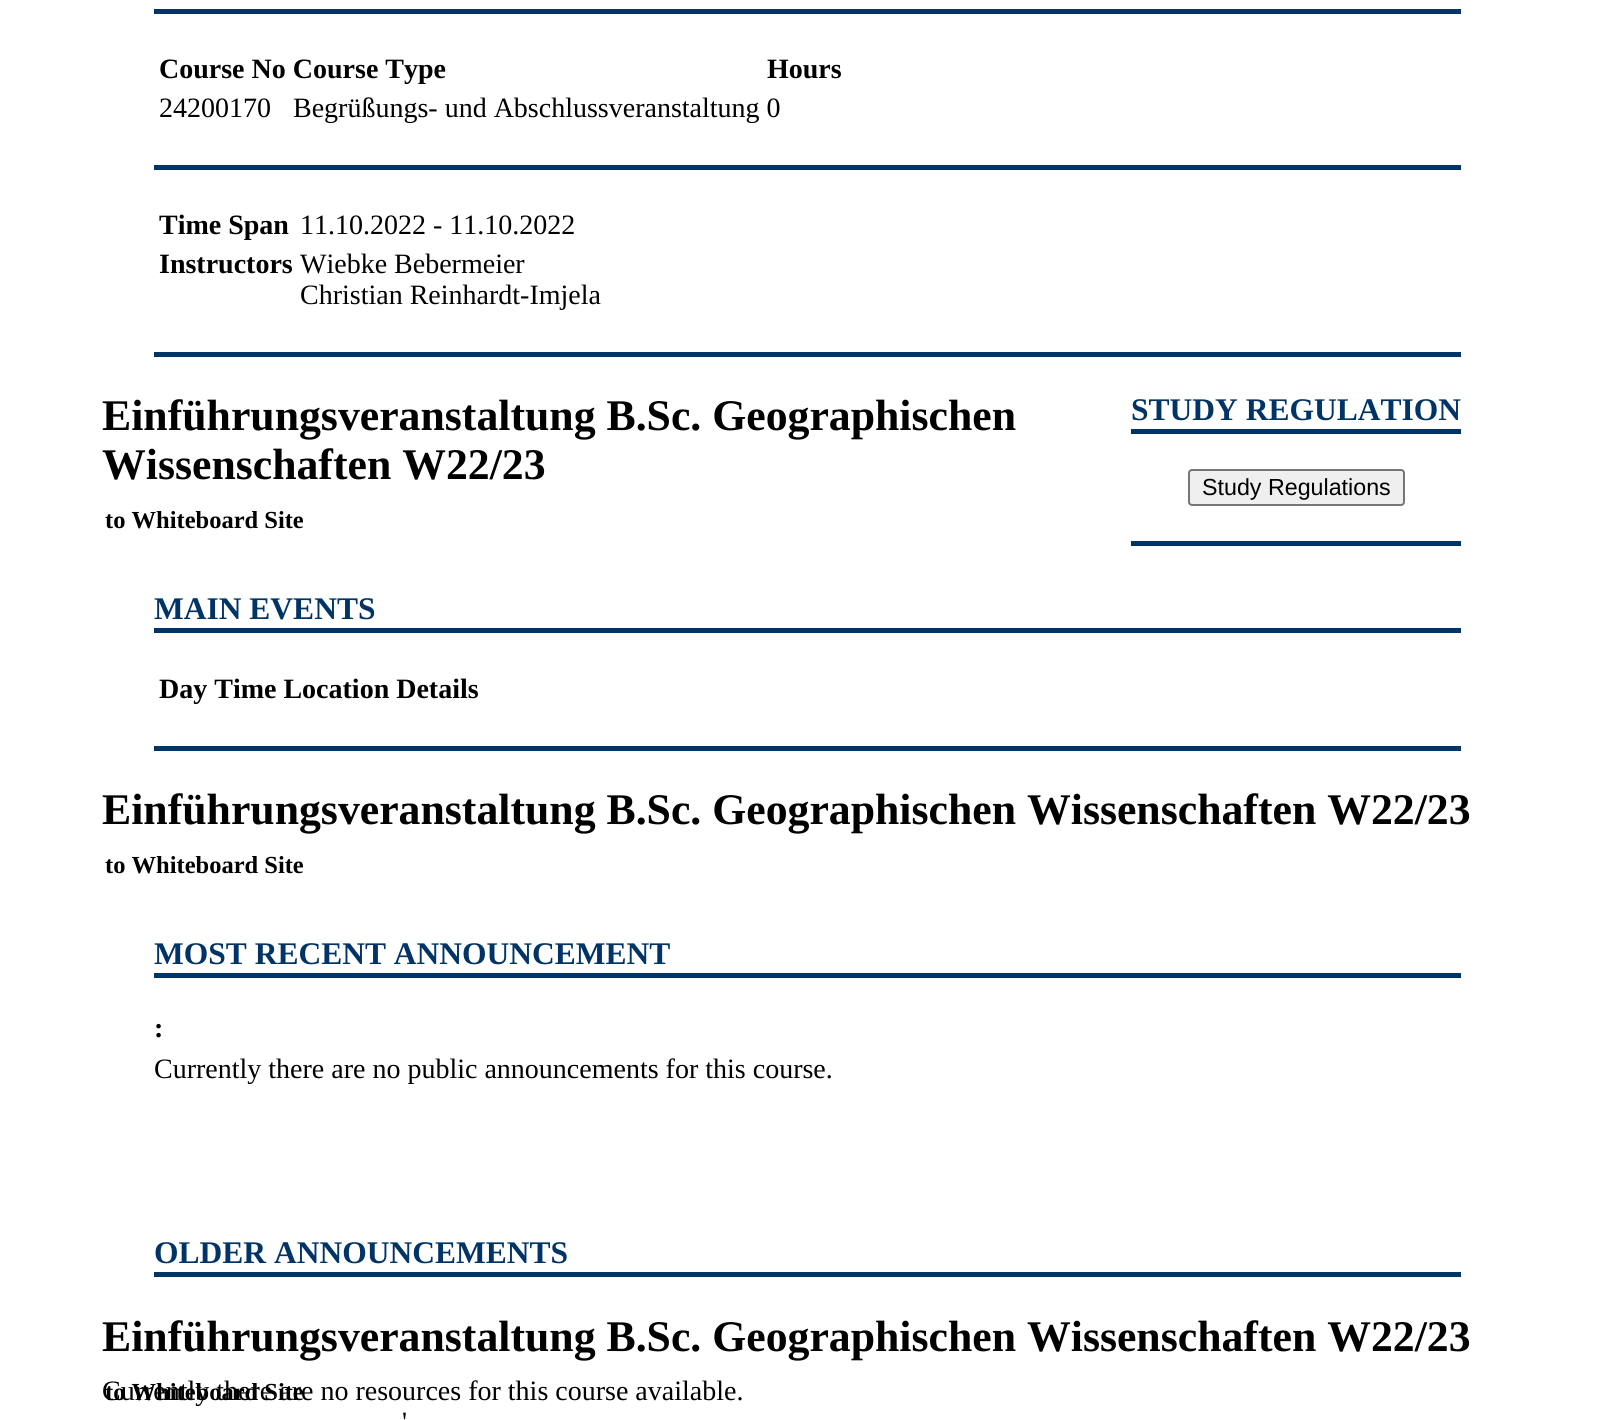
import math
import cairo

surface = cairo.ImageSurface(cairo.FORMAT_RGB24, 1616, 1420)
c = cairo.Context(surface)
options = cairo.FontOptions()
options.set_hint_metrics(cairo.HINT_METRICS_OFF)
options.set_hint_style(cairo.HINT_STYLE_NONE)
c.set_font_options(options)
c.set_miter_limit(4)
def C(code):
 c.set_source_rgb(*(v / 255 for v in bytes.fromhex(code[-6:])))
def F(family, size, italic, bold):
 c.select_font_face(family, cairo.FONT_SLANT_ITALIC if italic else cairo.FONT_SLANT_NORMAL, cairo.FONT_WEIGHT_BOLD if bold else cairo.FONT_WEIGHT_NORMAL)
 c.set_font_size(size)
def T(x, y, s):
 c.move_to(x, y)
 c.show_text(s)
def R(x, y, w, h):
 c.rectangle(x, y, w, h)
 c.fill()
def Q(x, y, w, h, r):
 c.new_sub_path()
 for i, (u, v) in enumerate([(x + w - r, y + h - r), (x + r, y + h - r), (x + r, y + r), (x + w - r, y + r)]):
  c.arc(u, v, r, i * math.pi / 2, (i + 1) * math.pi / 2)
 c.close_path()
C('ffffff')
c.paint()
C('003366')
R(154,9,1307,5)
F('Liberation Serif',28,0,1)
C('000000')
T(159,78,'Course No Course Type')
T(767,78,'Hours')
F('Liberation Serif',28,0,0)
T(159,117,'24200170')
T(293,117,'Begrüßungs- und Abschlussveranstaltung 0')
C('003366')
R(154,165,1307,5)
F('Liberation Serif',28,0,1)
C('000000')
T(159,234,'Time Span')
F('Liberation Serif',28,0,0)
T(300,234,'11.10.2022 - 11.10.2022')
F('Liberation Serif',28,0,1)
T(159,273,'Instructors')
F('Liberation Serif',28,0,0)
T(300,273,'Wiebke Bebermeier')
T(300,304,'Christian Reinhardt-Imjela')
C('003366')
R(154,352,1307,5)
F('Liberation Serif',31.5,0,1)
T(1131,420,'STUDY REGULATION')
R(1131,429,330,5)
C('efefef')
Q(1189,470,215,35,3)
c.fill_preserve()
C('767676')
c.stroke()
F('Liberation Sans',23.25,0,0)
C('000000')
T(1202,495,'Study Regulations')
C('003366')
R(1131,541,330,5)
F('Liberation Serif',43.75,0,1)
C('000000')
T(102,430,'Einführungsveranstaltung B.Sc. Geographischen')
T(102,479,'Wissenschaften W22/23')
F('Liberation Serif',24.5,0,1)
T(105,528,'to Whiteboard Site')
F('Liberation Serif',31.5,0,1)
C('003366')
T(154,619,'MAIN EVENTS')
R(154,628,1307,5)
F('Liberation Serif',28,0,1)
C('000000')
T(159,698,'Day Time Location Details')
C('003366')
R(154,746,1307,5)
F('Liberation Serif',43.75,0,1)
C('000000')
T(102,824,'Einführungsveranstaltung B.Sc. Geographischen Wissenschaften W22/23')
F('Liberation Serif',24.5,0,1)
T(105,873,'to Whiteboard Site')
F('Liberation Serif',31.5,0,1)
C('003366')
T(154,964,'MOST RECENT ANNOUNCEMENT')
R(154,973,1307,5)
F('Liberation Serif',28,0,1)
C('000000')
T(154,1037,':')
F('Liberation Serif',28,0,0)
T(154,1078,'Currently there are no public announcements for this course.')
F('Liberation Serif',31.5,0,1)
C('003366')
T(154,1263,'OLDER ANNOUNCEMENTS')
R(154,1272,1307,5)
F('Liberation Serif',43.75,0,1)
C('000000')
T(102,1351,'Einführungsveranstaltung B.Sc. Geographischen Wissenschaften W22/23')
F('Liberation Serif',24.5,0,1)
T(105,1400,'to Whiteboard Site')
F('Liberation Serif',28,0,0)
T(102,1400,'Currently there are no resources for this course available.')
T(402,1431,'\'')
surface.write_to_png('o.png')
